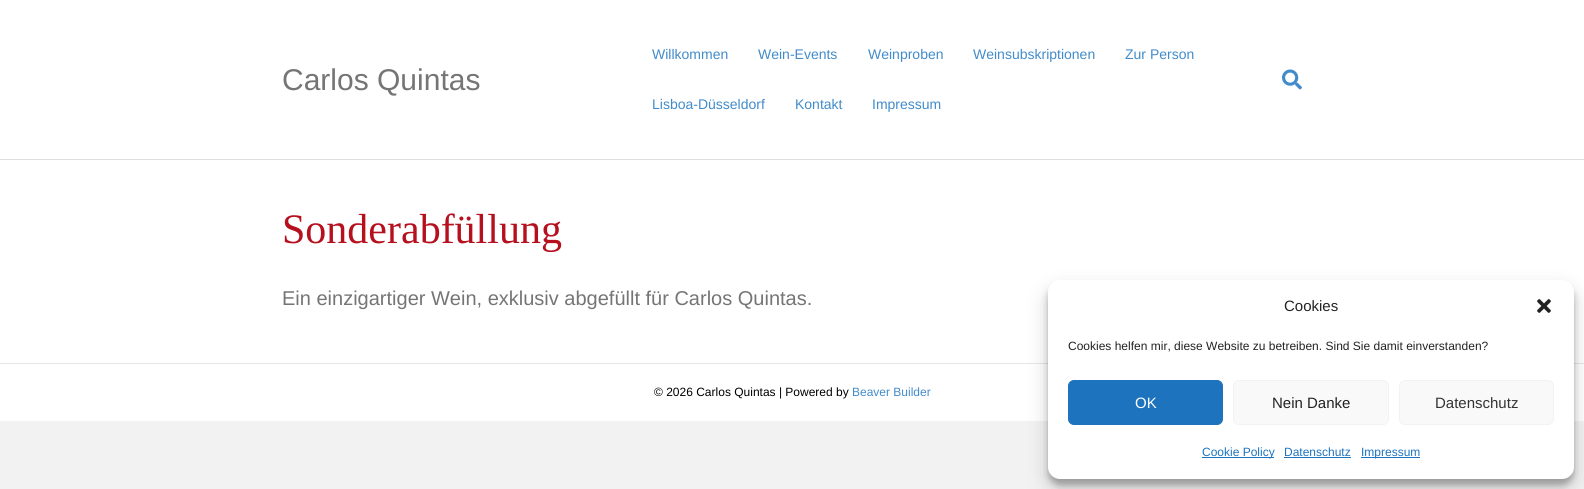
import math
import cairo

surface = cairo.ImageSurface(cairo.FORMAT_RGB24, 1584, 489)
c = cairo.Context(surface)
options = cairo.FontOptions()
options.set_hint_metrics(cairo.HINT_METRICS_OFF)
options.set_hint_style(cairo.HINT_STYLE_NONE)
c.set_font_options(options)
c.set_miter_limit(4)
def C(code):
 c.set_source_rgb(*(v / 255 for v in bytes.fromhex(code[-6:])))
def F(family, size, italic, bold):
 c.select_font_face(family, cairo.FONT_SLANT_ITALIC if italic else cairo.FONT_SLANT_NORMAL, cairo.FONT_WEIGHT_BOLD if bold else cairo.FONT_WEIGHT_NORMAL)
 c.set_font_size(size)
def T(x, y, s):
 c.move_to(x, y)
 c.show_text(s)
def R(x, y, w, h):
 c.rectangle(x, y, w, h)
 c.fill()
def Q(x, y, w, h, r):
 c.new_sub_path()
 for i, (u, v) in enumerate([(x + w - r, y + h - r), (x + r, y + h - r), (x + r, y + r), (x + w - r, y + r)]):
  c.arc(u, v, r, i * math.pi / 2, (i + 1) * math.pi / 2)
 c.close_path()
def S(x, y, w, h, r, blur, alpha):
 c.push_group_with_content(cairo.CONTENT_ALPHA)
 c.set_operator(cairo.OPERATOR_SOURCE)
 for i in range(15, -16, -2):
  e = blur * i / 6
  if min(w, h) + 2 * e > 0:
   c.set_source_rgba(0, 0, 0, alpha * math.erfc((i - 1) / 8.5) / 2)
   Q(x - e, y - e, w + 2 * e, h + 2 * e, max(0, min(r + e + blur * .6, min(w, h) / 2 + e)))
   c.fill()
 c.mask(c.pop_group())
def I(path, x, y, w, h):
 c.save()
 c.set_source_surface(cairo.ImageSurface.create_from_png(path), x, y)
 c.rectangle(x, y, w, h)
 c.fill()
 c.restore()
C('f2f2f2')
c.paint()
C('ffffff')
R(0,0,1584,159)
C('dedede')
R(0,159,1584,1)
F('Liberation Sans',30,0,0)
C('757575')
T(282,90,'Carlos Quintas')
F('Liberation Sans',14,0,0)
C('428bca')
T(652,59,'Willkommen')
T(758,59,'Wein-Events')
T(868,59,'Weinproben')
T(973,59,'Weinsubskriptionen')
T(1125,59,'Zur Person')
T(652,109,'Lisboa-Düsseldorf')
T(795,109,'Kontakt')
T(872,109,'Impressum')
I('1.png',1282,69,20,21)
C('ffffff')
R(0,160,1584,203)
F('Liberation Serif',42,0,0)
C('b6101e')
T(282,243,'Sonderabfüllung')
F('Liberation Sans',20,0,0)
C('757575')
T(282,305,'Ein einzigartiger Wein, exklusiv abgefüllt für Carlos Quintas.')
C('ffffff')
R(0,364,1584,57)
C('e6e6e6')
R(0,363,1584,1)
F('Liberation Sans',12,0,0)
C('000000')
T(654,396,'© 2026 Carlos Quintas | Powered by')
C('428bca')
T(852,396,'Beaver Builder')
C('000000')
S(1048,286,526,199,12,3,.23)
S(1048,290,526,199,12,10,.19)
C('ffffff')
Q(1048,280,526,199,12)
c.fill()
F('Liberation Sans',15,0,0)
C('222222')
T(1284,311,'Cookies')
I('2.png',1537,299,14,14)
F('Liberation Sans',12,0,0)
T(1068,350,'Cookies helfen mir, diese Website zu betreiben. Sind Sie damit einverstanden?')
C('1e73be')
Q(1068.5,380.5,154,44,5.5)
c.fill_preserve()
c.set_line_width(1)
c.stroke()
F('Liberation Sans',15,0,0)
C('ffffff')
T(1135,408,'OK')
C('f9f9f9')
Q(1233.5,380.5,155,44,5.5)
c.fill_preserve()
C('f2f2f2')
c.stroke()
C('222222')
T(1272,408,'Nein Danke')
C('f9f9f9')
Q(1399.5,380.5,154,44,5.5)
c.fill_preserve()
C('f2f2f2')
c.stroke()
C('333333')
T(1435,408,'Datenschutz')
C('1e73be')
R(1202,457,72,1)
F('Liberation Sans',12,0,0)
T(1202,456,'Cookie Policy')
T(1284,456,'Datenschutz')
R(1284,457,67,1)
R(1361,457,59,1)
T(1361,456,'Impressum')
surface.write_to_png('o.png')
